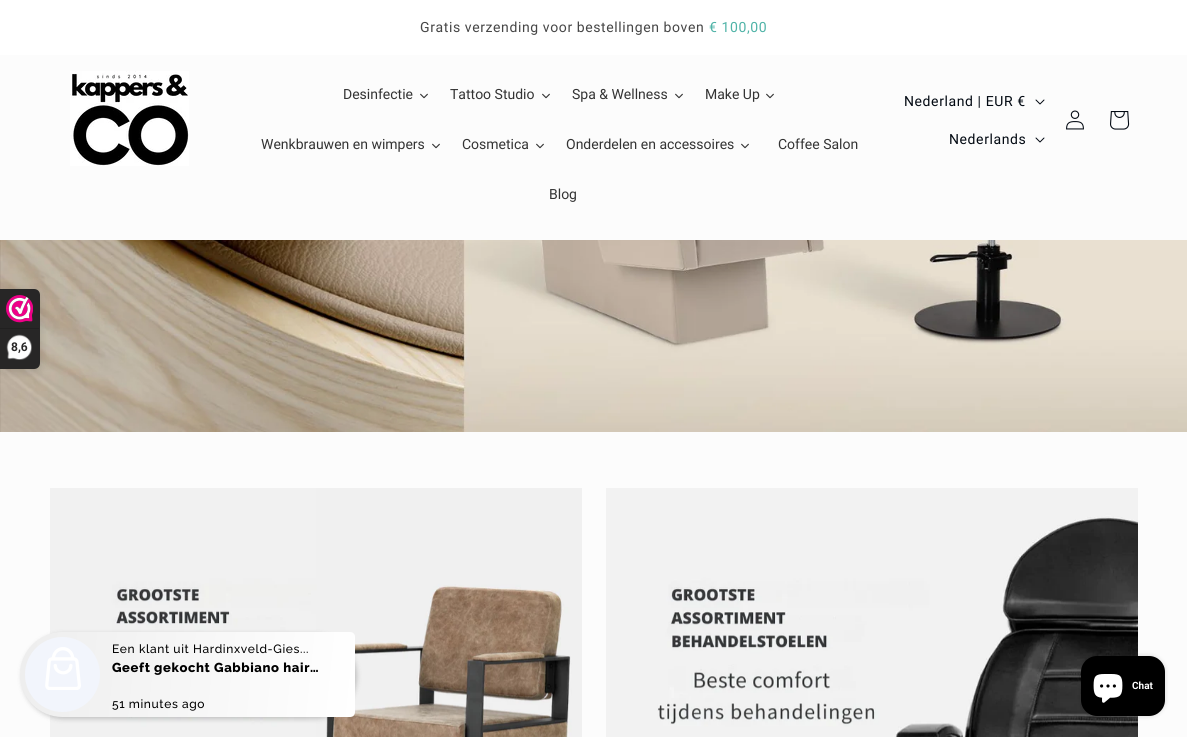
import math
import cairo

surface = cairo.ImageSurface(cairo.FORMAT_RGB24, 1187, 737)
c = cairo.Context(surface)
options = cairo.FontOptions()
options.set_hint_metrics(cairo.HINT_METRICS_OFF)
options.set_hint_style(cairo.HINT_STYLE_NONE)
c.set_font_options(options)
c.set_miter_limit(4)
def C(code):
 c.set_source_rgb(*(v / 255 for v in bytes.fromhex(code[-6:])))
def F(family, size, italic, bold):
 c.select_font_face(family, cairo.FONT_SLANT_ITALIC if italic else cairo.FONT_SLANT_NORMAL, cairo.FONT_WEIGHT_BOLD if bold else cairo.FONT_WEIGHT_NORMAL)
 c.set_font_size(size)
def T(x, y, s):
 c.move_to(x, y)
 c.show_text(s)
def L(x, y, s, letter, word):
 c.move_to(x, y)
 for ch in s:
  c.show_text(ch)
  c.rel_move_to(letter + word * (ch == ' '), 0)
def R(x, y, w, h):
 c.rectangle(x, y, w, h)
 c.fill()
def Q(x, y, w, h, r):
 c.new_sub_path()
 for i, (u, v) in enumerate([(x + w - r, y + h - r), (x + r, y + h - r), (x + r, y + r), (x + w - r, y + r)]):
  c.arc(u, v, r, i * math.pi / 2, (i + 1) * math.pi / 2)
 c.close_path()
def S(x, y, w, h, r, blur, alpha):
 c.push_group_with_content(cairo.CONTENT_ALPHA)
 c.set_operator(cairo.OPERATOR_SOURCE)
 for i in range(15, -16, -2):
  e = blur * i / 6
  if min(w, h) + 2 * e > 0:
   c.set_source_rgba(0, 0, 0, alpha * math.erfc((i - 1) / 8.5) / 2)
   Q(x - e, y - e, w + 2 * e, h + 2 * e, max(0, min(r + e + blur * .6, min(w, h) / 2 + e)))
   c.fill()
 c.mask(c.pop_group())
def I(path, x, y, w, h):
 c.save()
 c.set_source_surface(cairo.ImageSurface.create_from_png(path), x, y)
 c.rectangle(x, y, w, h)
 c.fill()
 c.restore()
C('fcfcfc')
c.paint()
C('ffffff')
R(0,0,1187,55)
F('Roboto',14,0,0)
C('464646')
L(420,32,'Gratis verzending voor bestellingen boven',.6,0)
C('4fb3a7')
L(709,32,'€ 100,00',.6,0)
I('1.png',70,71,119,95)
C('333333')
T(343,99,'Desinfectie')
I('2.png',420,93,8,6)
T(450,99,'Tattoo Studio')
I('2.png',542,93,8,6)
T(572,99,'Spa & Wellness')
I('2.png',675,93,8,6)
T(705,99,'Make Up')
I('2.png',766,93,8,6)
T(261,149,'Wenkbrauwen en wimpers')
I('2.png',432,143,8,6)
T(462,149,'Cosmetica')
I('2.png',536,143,8,6)
T(566,149,'Onderdelen en accessoires')
I('2.png',741,143,8,6)
T(778,149,'Coffee Salon')
T(549,199,'Blog')
C('020912')
L(904,106,'Nederland | EUR €',.6,0)
I('3.png',1035,99,10,6)
L(949,144,'Nederlands',.6,0)
I('3.png',1035,137,10,6)
I('4.png',1066,110,18,20)
I('5.png',1110,111,20,19)
I('6.png',0,240,1187,192)
I('7.png',50,488,532,249)
I('8.png',606,488,532,249)
C('000000')
S(0,291,40,80,6,5,.15)
C('272626')
c.new_path()
c.move_to(0,289)
c.line_to(34,289)
c.curve_to(37.5,289,40,291.5,40,295)
c.line_to(40,363)
c.curve_to(40,366.5,37.5,369,34,369)
c.line_to(0,369)
c.close_path()
c.fill()
I('9.png',6,295,27,28)
C('212020')
R(0,328,39,1)
I('10.png',6,334,26,26)
F('Roboto',12,0,1)
C('272626')
T(11,351,'8,6')
C('000000')
S(22,634,335,85,42.5,2.5,.2)
gradient = cairo.LinearGradient(17,657,358,692)
gradient.add_color_stop_rgba(.02,0.933,0.933,0.933,1)
gradient.add_color_stop_rgba(1,1,1,1,1)
c.set_source(gradient)
c.new_path()
c.move_to(62.5,632)
c.line_to(350,632)
c.curve_to(353,632,355,634,355,637)
c.line_to(355,712)
c.curve_to(355,715,353,717,350,717)
c.line_to(62.5,717)
c.curve_to(39,717,20,698,20,674.5)
c.curve_to(20,651,39,632,62.5,632)
c.close_path()
c.fill()
C('f2f5fc')
c.arc(62.5,674.5,37.5,0,2 * math.pi)
c.fill()
I('11.png',45,647,36,43)
F('Raleway Medium',12,0,0)
C('000000')
L(112,653,'Een klant uit Hardinxveld-Gies...',.6,0)
F('Raleway ExtraBold',13,0,0)
L(112,672,'Geeft gekocht Gabbiano hair…',.6,0)
F('Raleway Medium',12,0,0)
L(112,708,'51 minutes ago',.6,0)
C('000000')
S(1081,656,84,60,16,2.5,.15)
C('000000')
Q(1081,656,84,60,16)
c.fill()
I('12.png',1093,674,30,29)
F('Roboto',10,0,1)
C('ffffff')
T(1132,689,'Chat')
surface.write_to_png('o.png')
